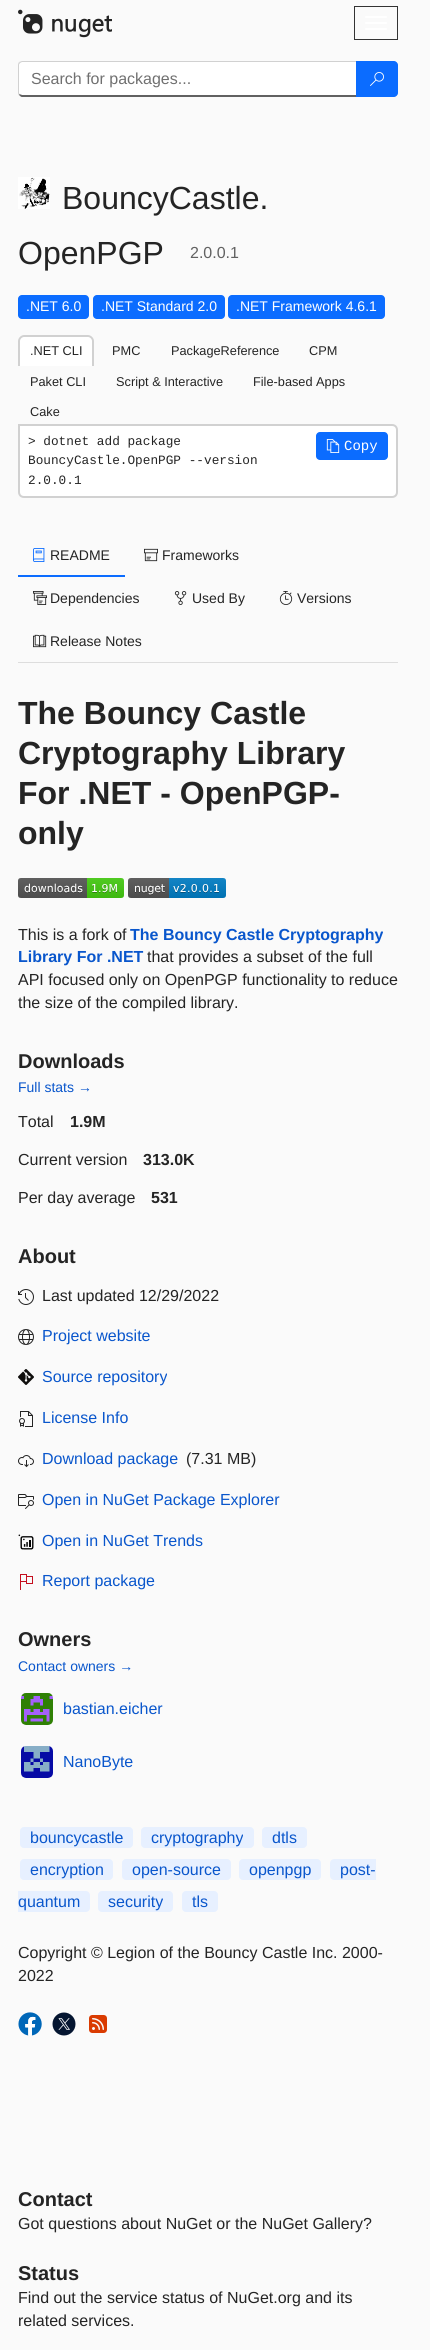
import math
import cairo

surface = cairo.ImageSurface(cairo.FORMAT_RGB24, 430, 2350)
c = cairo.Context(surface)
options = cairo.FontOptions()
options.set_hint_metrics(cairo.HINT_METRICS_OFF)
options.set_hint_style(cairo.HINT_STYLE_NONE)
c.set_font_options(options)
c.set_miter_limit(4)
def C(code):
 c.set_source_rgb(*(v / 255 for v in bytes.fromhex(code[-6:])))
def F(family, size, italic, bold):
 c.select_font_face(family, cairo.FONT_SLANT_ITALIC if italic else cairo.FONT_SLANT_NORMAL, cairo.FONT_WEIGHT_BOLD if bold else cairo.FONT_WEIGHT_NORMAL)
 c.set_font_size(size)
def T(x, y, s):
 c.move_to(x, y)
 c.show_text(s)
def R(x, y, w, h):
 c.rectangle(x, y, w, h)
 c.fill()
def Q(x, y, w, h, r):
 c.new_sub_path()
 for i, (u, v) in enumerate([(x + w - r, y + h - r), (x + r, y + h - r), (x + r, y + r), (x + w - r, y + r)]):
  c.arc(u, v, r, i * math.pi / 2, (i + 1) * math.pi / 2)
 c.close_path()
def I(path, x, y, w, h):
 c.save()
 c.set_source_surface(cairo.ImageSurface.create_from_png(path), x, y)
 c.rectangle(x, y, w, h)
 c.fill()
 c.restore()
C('fafafa')
c.paint()
I('1.png',18,9,94,29)
c.rectangle(354.5,6.5,43,33)
C('333333')
c.set_line_width(1)
c.stroke()
C('ffffff')
Q(365,16,22,2,1)
c.fill()
Q(365,22,22,2,1)
c.fill()
Q(365,28,22,2,1)
c.fill()
c.new_path()
c.move_to(22,62)
c.line_to(356,62)
c.line_to(356,95)
c.line_to(22,95)
c.curve_to(20,95,19,94,19,93)
c.line_to(19,65)
c.curve_to(19,63,20,62,22,62)
c.close_path()
c.fill()
C('d1d1d1')
c.new_path()
c.move_to(22,61)
c.line_to(19,62)
c.line_to(20,63)
c.line_to(22,62)
c.line_to(356,62)
c.line_to(357,61)
c.close_path()
c.fill()
C('616161')
c.new_path()
c.move_to(357,97)
c.line_to(356,95)
c.line_to(22,95)
c.line_to(19,94)
c.line_to(19,95)
c.curve_to(20,96,21,97,22,97)
c.close_path()
c.fill()
C('d1d1d1')
c.new_path()
c.move_to(18,65)
c.line_to(18,93)
c.curve_to(18,94,18.5,94.5,19,95.5)
c.line_to(19.5,94)
c.line_to(19,93)
c.line_to(19,64.5)
c.line_to(20,63)
c.line_to(19,62)
c.curve_to(18.5,63,18,64,18,65)
c.close_path()
c.fill()
F('Liberation Sans',16,0,0)
C('707070')
T(31,84,'Search for packages...')
C('0b6cff')
c.new_path()
c.move_to(356,61)
c.line_to(394,61)
c.curve_to(396,61,398,63,398,65)
c.line_to(398,93)
c.curve_to(398,95,396,97,394,97)
c.line_to(356,97)
c.close_path()
c.fill()
I('2.png',370,72,14,14)
I('3.png',18,177,32,32)
F('Liberation Sans',32,0,0)
C('242424')
T(62,209,'BouncyCastle.')
T(18,264,'OpenPGP')
F('Liberation Sans',16,0,0)
C('616161')
T(190,258,'2.0.0.1')
C('0b6cff')
Q(18,295,71,24,4)
c.fill()
F('Liberation Sans',14,0,0)
C('ffffff')
T(26,311,'.NET 6.0')
C('0b6cff')
Q(93,295,132,24,4)
c.fill()
C('ffffff')
T(101,311,'.NET Standard 2.0')
C('0b6cff')
Q(228,295,157,24,4)
c.fill()
C('ffffff')
T(236,311,'.NET Framework 4.6.1')
c.new_path()
c.move_to(24,335)
c.line_to(88,335)
c.curve_to(91.5,335,94,337.5,94,341)
c.line_to(94,366)
c.line_to(18,366)
c.line_to(18,341)
c.curve_to(18,337.5,20.5,335,24,335)
c.close_path()
c.fill()
C('d1d1d1')
c.set_fill_rule(cairo.FILL_RULE_EVEN_ODD)
c.new_path()
c.move_to(24,335)
c.line_to(88,335)
c.curve_to(91,335,94,338,94,341)
c.line_to(94,366)
c.line_to(18,366)
c.line_to(18,341)
c.curve_to(18,338,21,335,24,335)
c.close_path()
c.move_to(24,337)
c.line_to(88,337)
c.curve_to(90,337,92,339,92,341)
c.line_to(92,366)
c.line_to(20,366)
c.line_to(20,341)
c.curve_to(20,339,22,337,24,337)
c.close_path()
c.fill()
F('Liberation Sans',12.75,0,0)
C('242424')
T(30,355,'.NET CLI')
T(112,355,'PMC')
T(171,355,'PackageReference')
T(309,355,'CPM')
T(30,386,'Paket CLI')
T(116,386,'Script & Interactive')
T(253,386,'File-based Apps')
T(30,416,'Cake')
C('ffffff')
c.new_path()
c.move_to(19,425)
c.line_to(392,425)
c.curve_to(395,425,397,427,397,430)
c.line_to(397,492)
c.curve_to(397,495,395,497,392,497)
c.line_to(24,497)
c.curve_to(21,497,19,495,19,492)
c.close_path()
c.fill_preserve()
C('d1d1d1')
c.set_line_width(2)
c.stroke()
F('Liberation Mono',12.75,0,0)
C('242424')
T(28,445,'> dotnet add package')
T(28,464,'BouncyCastle.OpenPGP --version')
T(28,484,'2.0.0.1')
C('0b6cff')
Q(316,432,72,28,4)
c.fill()
I('4.png',326,439,14,14)
F('Liberation Mono',14,0,0)
C('ffffff')
T(344,450,'Copy')
C('dddddd')
R(18,662,380,1)
C('0b6cff')
R(18,575,107,2)
I('5.png',33,548,12,14)
F('Liberation Sans',14,0,0)
C('242424')
T(50,560,'README')
I('6.png',144,548,14,14)
T(162,560,'Frameworks')
I('7.png',33,591,14,14)
T(50,603,'Dependencies')
I('8.png',174,591,13,14)
T(192,603,'Used By')
I('9.png',279,591,14,14)
T(297,603,'Versions')
I('10.png',33,634,14,14)
T(50,646,'Release Notes')
F('Liberation Sans',32,0,1)
T(18,724,'The Bouncy Castle')
T(18,764,'Cryptography Library')
T(18,804,'For .NET - OpenPGP-')
T(18,844,'only')
I('11.png',18,878,106,20)
I('12.png',128,878,98,20)
F('Liberation Sans',16,0,0)
T(18,940,'This is a fork of')
F('Liberation Sans',16,0,1)
C('0956cc')
T(130,940,'The Bouncy Castle Cryptography')
T(18,962,'Library For .NET')
F('Liberation Sans',16,0,0)
C('242424')
T(147,962,'that provides a subset of the full')
T(18,985,'API focused only on OpenPGP functionality to reduce')
T(18,1008,'the size of the compiled library.')
F('Liberation Sans',20,0,1)
T(18,1068,'Downloads')
F('Liberation Sans',14,0,0)
C('0956cc')
T(18,1092,'Full stats →')
F('Liberation Sans',16,0,0)
C('242424')
T(18,1127,'Total')
F('Liberation Sans',16,0,1)
T(70,1127,'1.9M')
F('Liberation Sans',16,0,0)
T(18,1165,'Current version')
F('Liberation Sans',16,0,1)
T(143,1165,'313.0K')
F('Liberation Sans',16,0,0)
T(18,1203,'Per day average')
F('Liberation Sans',16,0,1)
T(151,1203,'531')
F('Liberation Sans',20,0,1)
T(18,1263,'About')
I('13.png',18,1289,16,16)
F('Liberation Sans',16,0,0)
T(42,1301,'Last updated 12/29/2022')
I('14.png',18,1329,16,16)
C('0956cc')
T(42,1341,'Project website')
I('15.png',18,1369,16,16)
T(42,1382,'Source repository')
I('16.png',19,1411,14,16)
T(42,1423,'License Info')
I('17.png',18,1455,16,13)
T(42,1464,'Download package')
C('242424')
T(186,1464,'(7.31 MB)')
I('18.png',18,1494,16,15)
C('0956cc')
T(42,1505,'Open in NuGet Package Explorer')
I('19.png',18,1534,16,16)
T(42,1546,'Open in NuGet Trends')
I('20.png',20,1574,13,16)
T(42,1586,'Report package')
F('Liberation Sans',20,0,1)
C('242424')
T(18,1646,'Owners')
F('Liberation Sans',14,0,0)
C('0956cc')
T(18,1671,'Contact owners →')
I('21.png',21,1693,32,32)
F('Liberation Sans',16,0,0)
T(63,1714,'bastian.eicher')
I('22.png',21,1746,32,32)
T(63,1767,'NanoByte')
C('e7f0ff')
Q(20,1827,113,21,4)
c.fill()
C('0956cc')
T(30,1843,'bouncycastle')
C('e7f0ff')
Q(141,1827,113,21,4)
c.fill()
C('0956cc')
T(151,1843,'cryptography')
C('e7f0ff')
Q(262,1827,45,21,4)
c.fill()
C('0956cc')
T(272,1843,'dtls')
C('e7f0ff')
Q(20,1859,93,21,4)
c.fill()
C('0956cc')
T(30,1875,'encryption')
C('e7f0ff')
Q(122,1859,109,21,4)
c.fill()
C('0956cc')
T(132,1875,'open-source')
C('e7f0ff')
Q(239,1859,82,21,4)
c.fill()
C('0956cc')
T(249,1875,'openpgp')
C('e7f0ff')
c.new_path()
c.move_to(334,1859)
c.line_to(376,1859)
c.line_to(376,1880)
c.line_to(334,1880)
c.curve_to(332,1880,330,1878,330,1876)
c.line_to(330,1863)
c.curve_to(330,1861,332,1859,334,1859)
c.close_path()
c.fill()
C('0956cc')
T(340,1875,'post-')
C('e7f0ff')
c.new_path()
c.move_to(18,1891)
c.line_to(86,1891)
c.curve_to(88,1891,90,1893,90,1895)
c.line_to(90,1908)
c.curve_to(90,1910,88,1912,86,1912)
c.line_to(18,1912)
c.close_path()
c.fill()
C('0956cc')
T(18,1907,'quantum')
C('e7f0ff')
Q(98,1891,75,21,4)
c.fill()
C('0956cc')
T(108,1907,'security')
C('e7f0ff')
Q(182,1891,36,21,4)
c.fill()
C('0956cc')
T(192,1907,'tls')
C('242424')
T(18,1958,'Copyright © Legion of the Bouncy Castle Inc. 2000-')
T(18,1981,'2022')
I('23.png',18,2012,24,24)
I('24.png',52,2012,24,24)
I('25.png',89,2015,18,18)
F('Liberation Sans',20,0,1)
T(18,2206,'Contact')
F('Liberation Sans',16,0,0)
T(18,2229,'Got questions about NuGet or the NuGet Gallery?')
F('Liberation Sans',20,0,1)
T(18,2280,'Status')
F('Liberation Sans',16,0,0)
T(18,2303,'Find out the service status of NuGet.org and its')
T(18,2326,'related services.')
surface.write_to_png('o.png')
